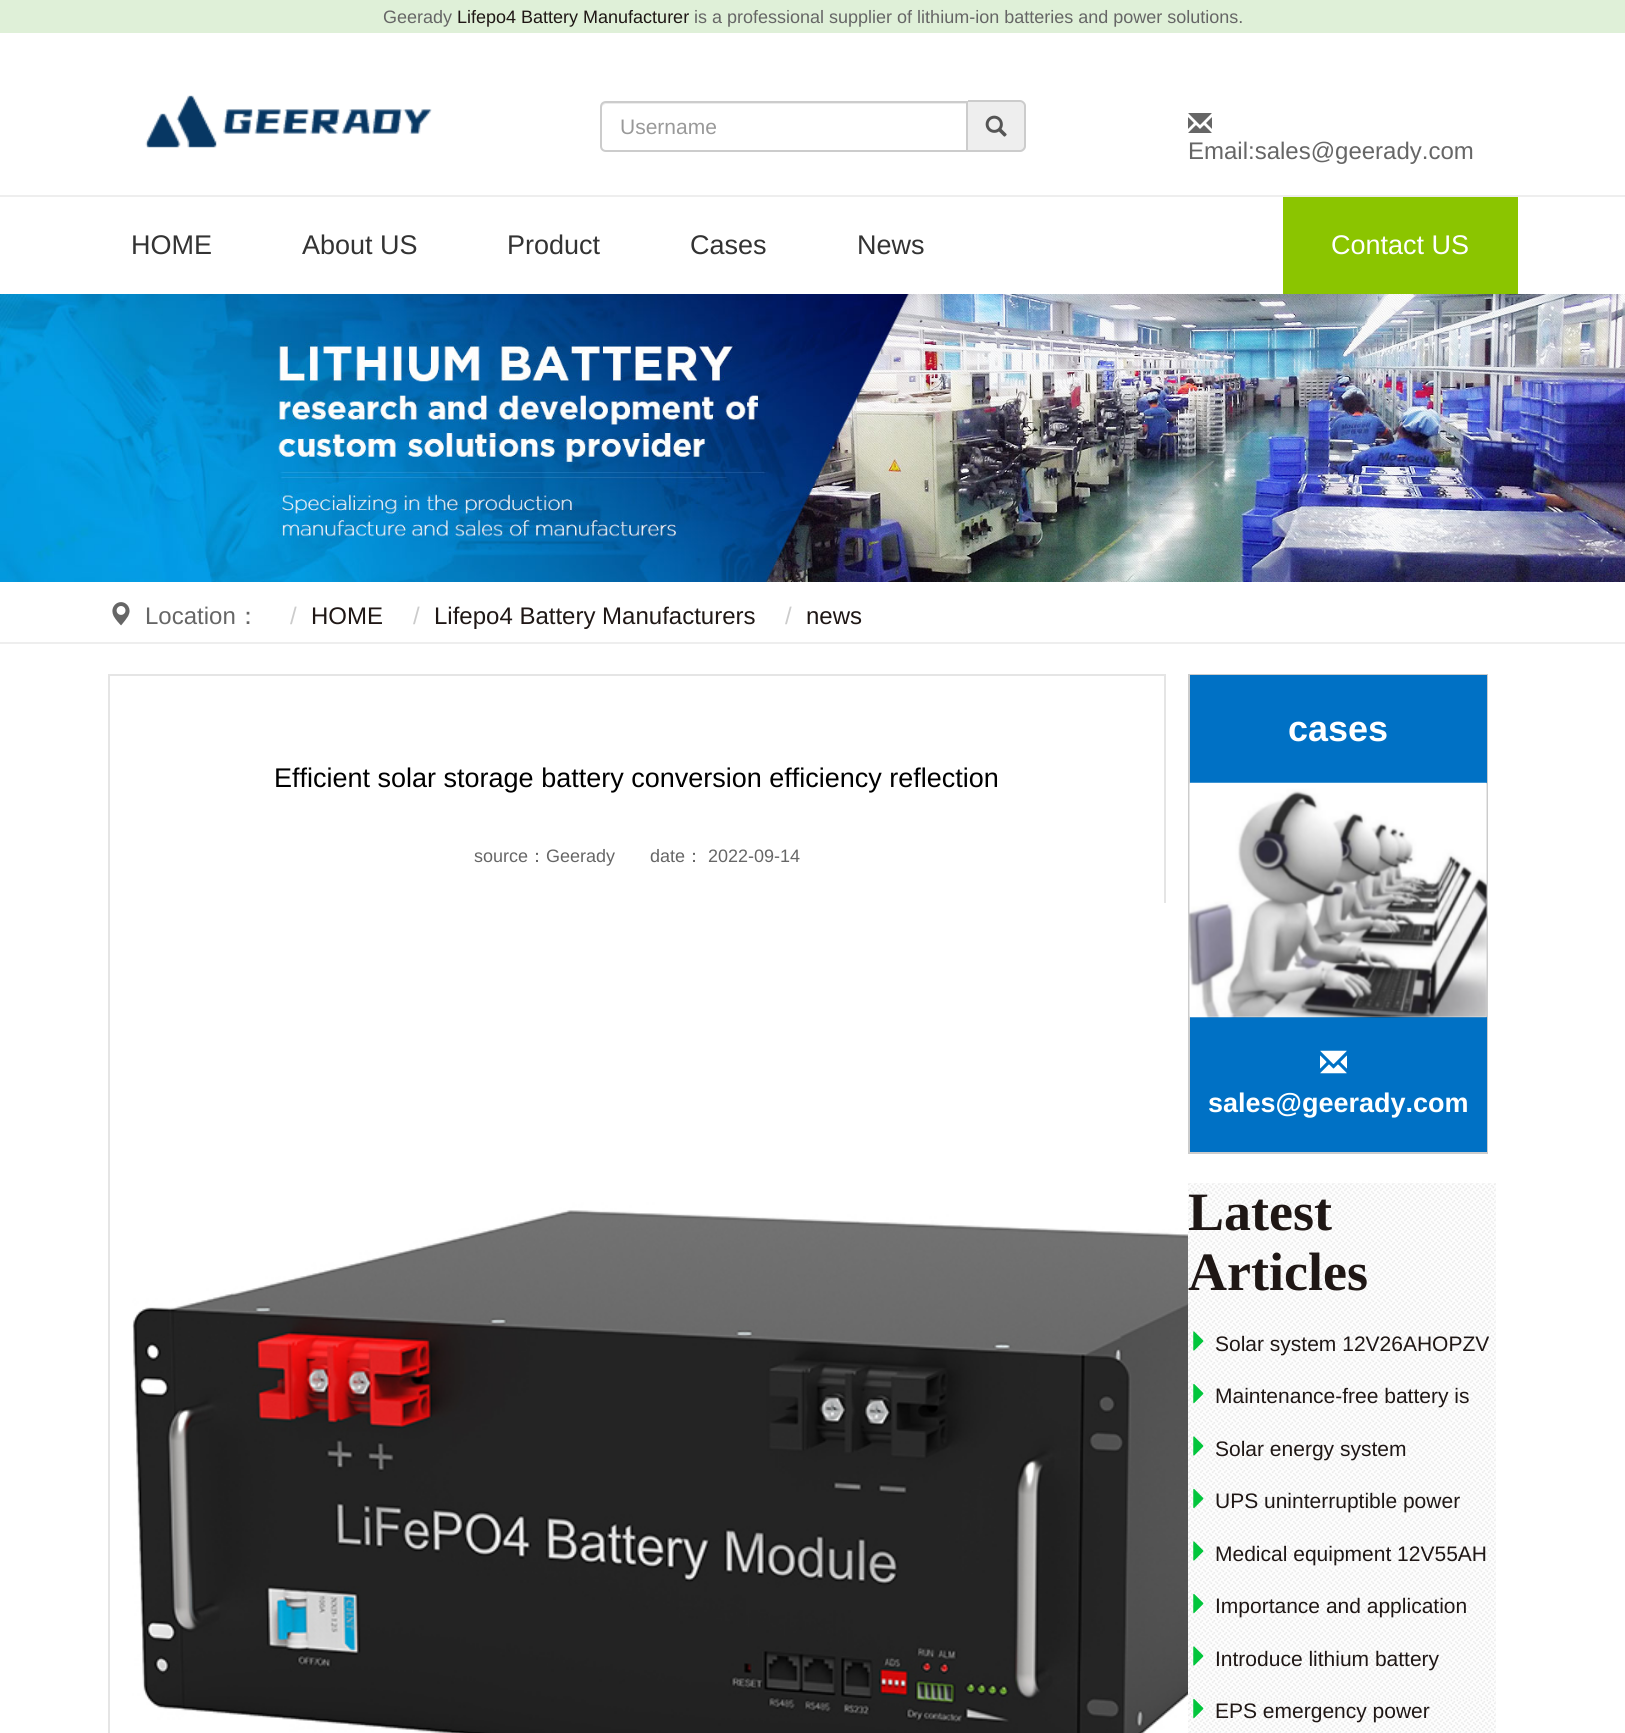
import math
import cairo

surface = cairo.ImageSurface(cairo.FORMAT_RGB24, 1625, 1733)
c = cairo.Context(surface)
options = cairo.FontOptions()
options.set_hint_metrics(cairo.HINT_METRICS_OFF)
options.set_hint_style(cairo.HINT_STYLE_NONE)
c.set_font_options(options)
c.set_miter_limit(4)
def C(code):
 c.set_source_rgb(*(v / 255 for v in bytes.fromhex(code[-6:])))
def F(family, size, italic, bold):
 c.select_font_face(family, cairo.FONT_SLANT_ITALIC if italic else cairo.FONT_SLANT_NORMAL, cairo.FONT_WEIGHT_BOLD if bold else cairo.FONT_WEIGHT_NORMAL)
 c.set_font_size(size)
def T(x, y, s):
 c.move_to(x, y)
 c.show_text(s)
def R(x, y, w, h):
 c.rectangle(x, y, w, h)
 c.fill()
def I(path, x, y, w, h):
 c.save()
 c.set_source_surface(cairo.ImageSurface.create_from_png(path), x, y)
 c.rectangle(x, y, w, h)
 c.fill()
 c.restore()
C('ffffff')
c.paint()
C('dff0d8')
R(0,0,1625,33)
F('Liberation Sans',18,0,0)
C('666666')
T(383,23,'Geerady')
C('1f1715')
T(457,23,'Lifepo4 Battery Manufacturer')
C('666666')
T(694,23,'is a professional supplier of lithium-ion batteries and power solutions.')
I('1.png',145,95,287,53)
C('ececec')
c.new_path()
c.move_to(606,104)
c.line_to(966,104)
c.line_to(966,102)
c.line_to(607,102)
c.curve_to(604,102,602,104,602,107)
c.line_to(602,108)
c.curve_to(602,106,604,104,606,104)
c.close_path()
c.fill()
c.new_path()
c.move_to(606,102)
c.line_to(967,102)
c.line_to(967,151)
c.line_to(606,151)
c.curve_to(603,151,601,149,601,146)
c.line_to(601,107)
c.curve_to(601,104,603,102,606,102)
c.close_path()
C('cccccc')
c.stroke()
F('Liberation Sans',21,0,0)
C('999999')
T(620,134,'Username')
C('eeeeee')
c.new_path()
c.move_to(968,101)
c.line_to(1020,101)
c.curve_to(1023.5,101,1026,103.5,1026,107)
c.line_to(1026,146)
c.curve_to(1026,149.5,1023.5,152,1020,152)
c.line_to(968,152)
c.close_path()
c.fill()
C('cccccc')
c.set_fill_rule(cairo.FILL_RULE_EVEN_ODD)
c.new_path()
c.move_to(968,100)
c.line_to(1020,100)
c.curve_to(1023,100,1026,103,1026,106)
c.line_to(1026,146)
c.curve_to(1026,149,1023,152,1020,152)
c.line_to(968,152)
c.close_path()
c.move_to(968,102)
c.line_to(1020,102)
c.curve_to(1022,102,1024,104,1024,106)
c.line_to(1024,146)
c.curve_to(1024,148,1022,150,1020,150)
c.line_to(968,150)
c.close_path()
c.fill()
I('2.png',985,115,22,22)
I('3.png',1188,113,24,20)
F('Liberation Sans',24,0,0)
C('666666')
T(1188,159,'Email:sales@geerady.com')
C('eeeeee')
R(0,195,1625,2)
F('Liberation Sans',27,0,0)
C('333333')
T(131,254,'HOME')
T(302,254,'About US')
T(507,254,'Product')
T(690,254,'Cases')
T(857,254,'News')
C('8bc500')
R(1283,197,235,97)
C('ffffff')
T(1331,254,'Contact US')
I('4.png',0,294,1625,288)
I('5.png',112,602,18,24)
F('Liberation Sans',24,0,0)
C('666666')
T(145,624,'Location')
F('WenQuanYi Zen Hei Medium',24,0,0)
T(236,624,'：')
F('Liberation Sans',24,0,0)
C('cccccc')
T(290,624,'/')
C('1f1715')
T(311,624,'HOME')
C('cccccc')
T(413,624,'/')
C('1f1715')
T(434,624,'Lifepo4 Battery Manufacturers')
C('cccccc')
T(785,624,'/')
C('1f1715')
T(806,624,'news')
C('eeeeee')
R(0,642,1625,2)
c.rectangle(109,675,1056,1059)
C('e5e5e5')
c.stroke()
F('Liberation Sans',27,0,0)
C('000000')
T(274,787,'Efficient solar storage battery conversion efficiency reflection')
F('Liberation Sans',18,0,0)
C('666666')
T(474,862,'source')
F('WenQuanYi Zen Hei Medium',18,0,0)
T(528,862,'：')
F('Liberation Sans',18,0,0)
T(546,862,'Geerady')
T(650,862,'date')
F('WenQuanYi Zen Hei Medium',18,0,0)
T(685,862,'：')
F('Liberation Sans',18,0,0)
T(708,862,'2022-09-14')
I('6.png',132,903,1192,830)
c.rectangle(1189,675,298,478)
C('cccccc')
c.stroke()
C('0071c5')
R(1190,675,297,108)
F('Liberation Sans',36,0,1)
C('ffffff')
T(1288,741,'cases')
C('0071c5')
R(1190,1017,297,135)
I('7.png',1189,782,298,236)
I('8.png',1320,1050,27,24)
F('Liberation Sans',27,0,1)
C('ffffff')
T(1208,1112,'sales@geerady.com')
I('9.png',1188,1183,308,550)
F('Liberation Serif',54,0,1)
C('1f1715')
T(1188,1230,'Latest')
T(1188,1290,'Articles')
I('10.png',1193,1331,11,20)
F('Liberation Sans',21,0,0)
T(1215,1351,'Solar system 12V26AHOPZV')
I('11.png',1193,1383,11,21)
T(1215,1403,'Maintenance-free battery is')
I('12.png',1193,1436,11,20)
T(1215,1456,'Solar energy system')
I('13.png',1193,1488,11,21)
T(1215,1508,'UPS uninterruptible power')
I('14.png',1193,1541,11,20)
T(1215,1561,'Medical equipment 12V55AH')
I('15.png',1193,1593,11,21)
T(1215,1613,'Importance and application')
I('16.png',1193,1646,11,20)
T(1215,1666,'Introduce lithium battery')
I('17.png',1193,1698,11,21)
T(1215,1718,'EPS emergency power')
surface.write_to_png('o.png')
